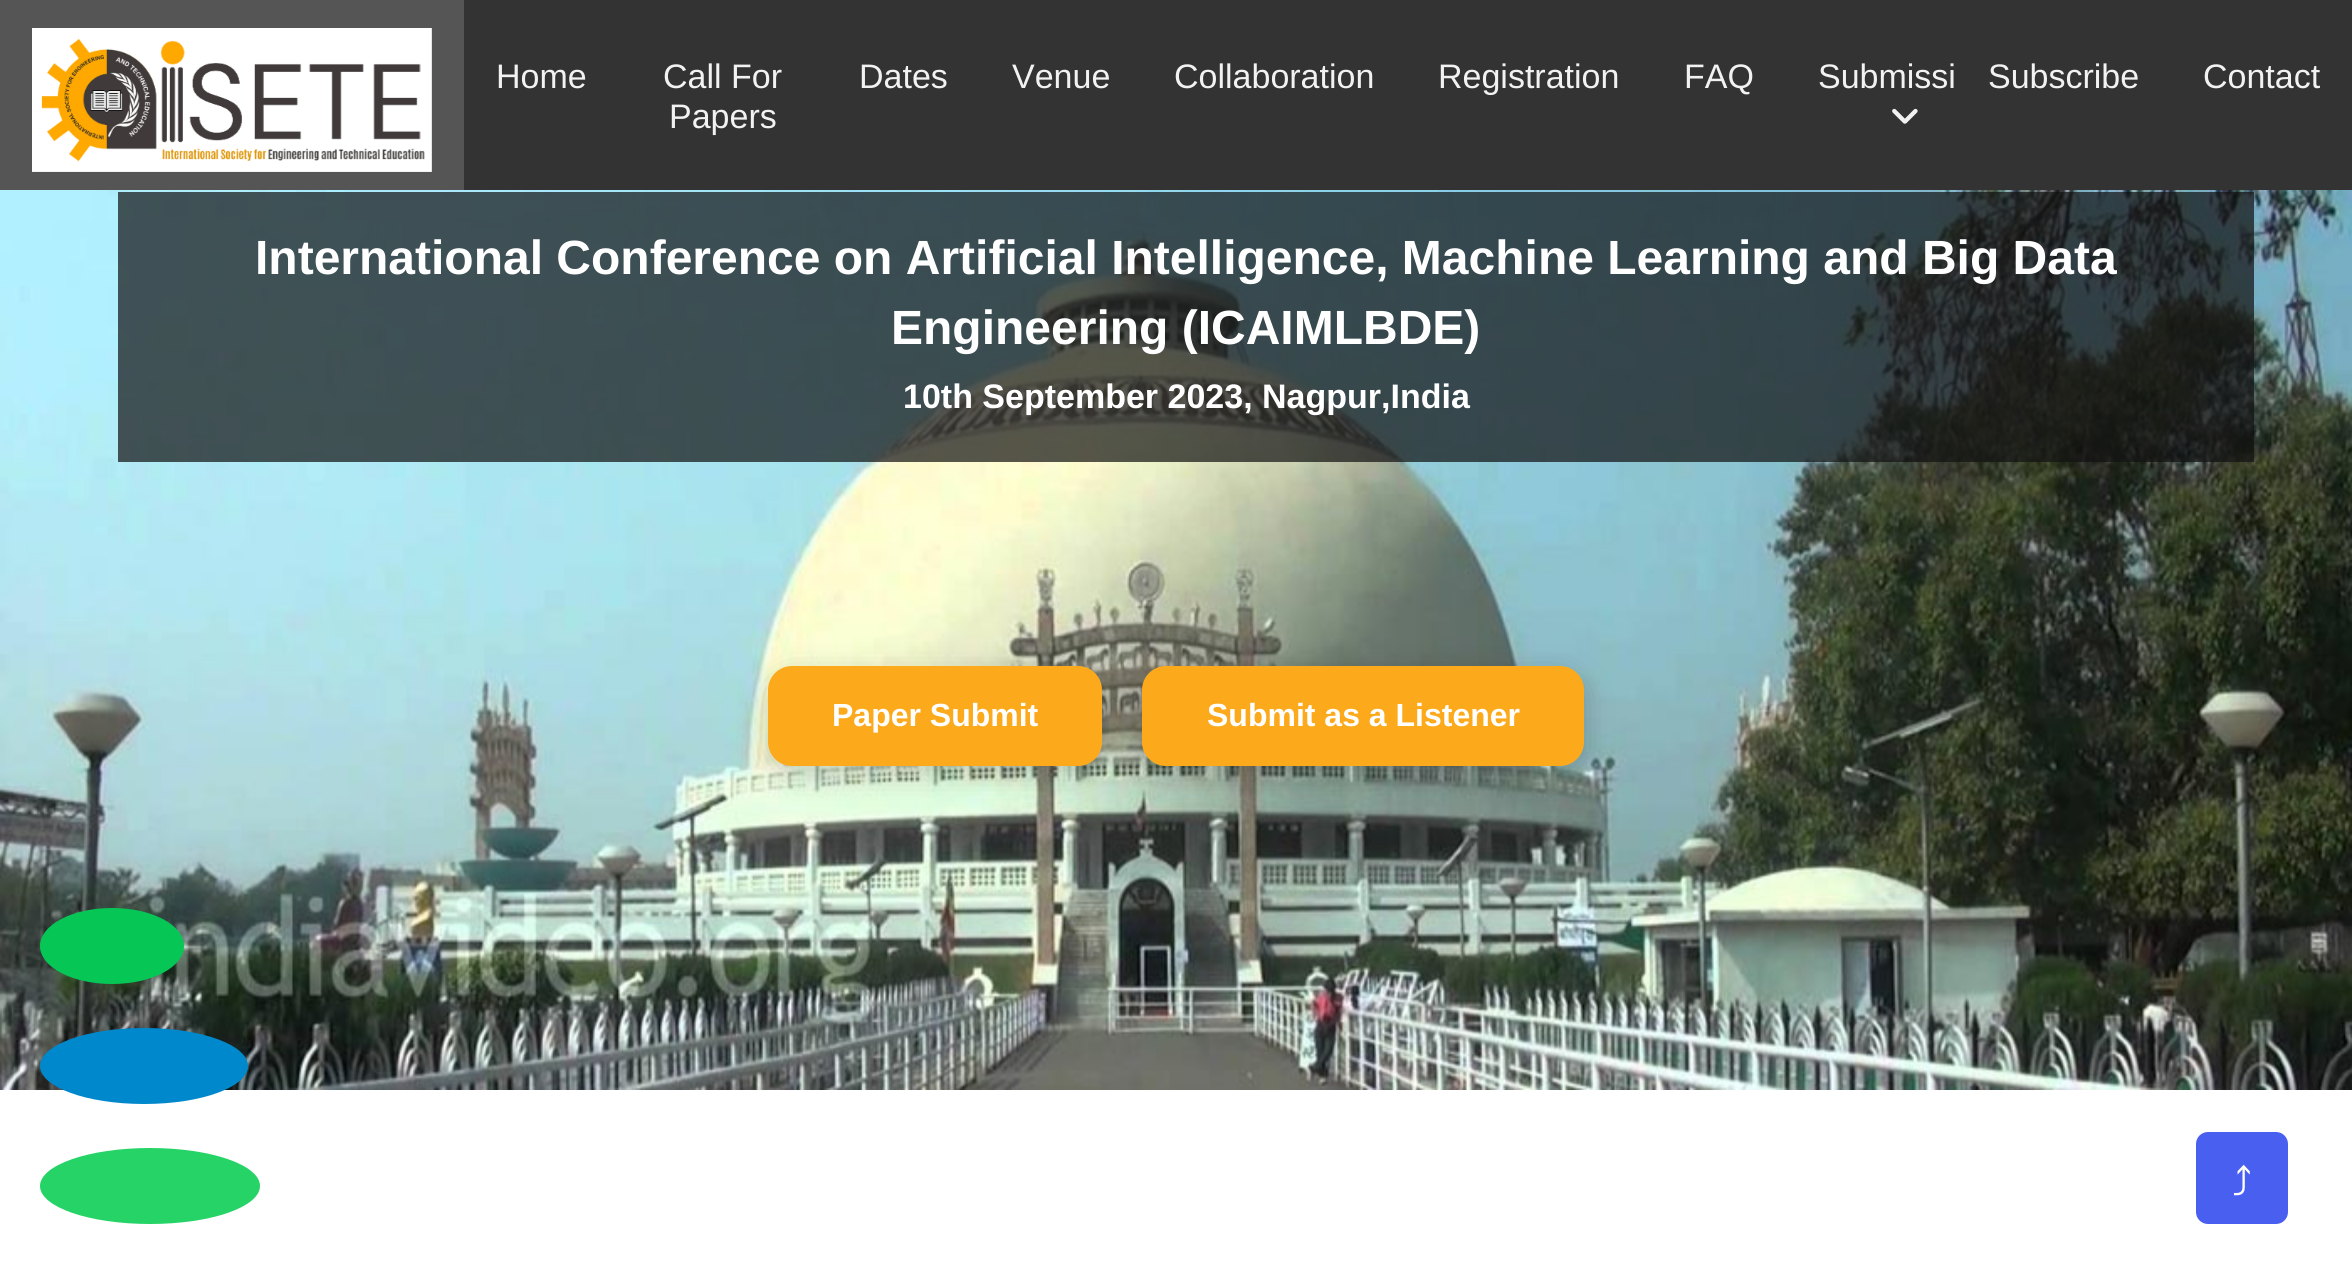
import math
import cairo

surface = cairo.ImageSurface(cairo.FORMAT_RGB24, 2352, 1263)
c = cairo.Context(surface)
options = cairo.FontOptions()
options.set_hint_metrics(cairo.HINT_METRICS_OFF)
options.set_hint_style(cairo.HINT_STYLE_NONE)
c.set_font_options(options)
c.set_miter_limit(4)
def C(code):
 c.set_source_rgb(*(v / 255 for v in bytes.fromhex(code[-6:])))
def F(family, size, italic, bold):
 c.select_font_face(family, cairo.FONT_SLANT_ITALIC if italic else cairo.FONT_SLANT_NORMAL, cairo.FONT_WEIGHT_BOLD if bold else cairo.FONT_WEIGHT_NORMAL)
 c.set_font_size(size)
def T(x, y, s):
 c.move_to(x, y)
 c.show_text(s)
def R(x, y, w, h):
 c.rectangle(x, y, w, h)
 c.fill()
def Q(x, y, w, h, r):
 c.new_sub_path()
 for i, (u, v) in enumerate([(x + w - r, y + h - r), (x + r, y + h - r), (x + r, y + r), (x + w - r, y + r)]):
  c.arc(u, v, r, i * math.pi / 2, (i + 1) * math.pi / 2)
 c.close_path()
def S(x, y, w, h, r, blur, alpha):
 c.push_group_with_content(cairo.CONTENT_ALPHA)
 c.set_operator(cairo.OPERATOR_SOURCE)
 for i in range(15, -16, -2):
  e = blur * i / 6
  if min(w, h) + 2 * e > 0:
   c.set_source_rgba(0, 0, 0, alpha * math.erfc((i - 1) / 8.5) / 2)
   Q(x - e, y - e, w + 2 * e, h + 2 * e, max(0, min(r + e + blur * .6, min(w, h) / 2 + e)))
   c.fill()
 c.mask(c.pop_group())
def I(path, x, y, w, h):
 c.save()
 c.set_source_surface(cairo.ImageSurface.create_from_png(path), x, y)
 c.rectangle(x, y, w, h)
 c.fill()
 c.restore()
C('ffffff')
c.paint()
C('333333')
R(464,0,1888,190)
C('555555')
R(0,0,464,190)
I('1.png',32,28,400,144)
F('Liberation Sans',34,0,0)
C('f2f2f2')
T(496,88,'Home')
T(663,88,'Call For')
T(669,128,'Papers')
T(859,88,'Dates')
T(1012,88,'Venue')
T(1174,88,'Collaboration')
T(1438,88,'Registration')
T(1684,88,'FAQ')
T(1818,88,'Submissi')
I('2.png',1892,108,26,16)
T(1988,88,'Subscribe')
T(2203,88,'Contact')
I('3.png',0,190,2352,900)
c.set_source_rgba(0.071,0.071,0.071,0.71)
R(118,192,2136,270)
F('Liberation Sans',48,0,1)
C('ffffff')
T(255,274,'International Conference on Artificial Intelligence, Machine Learning and Big Data')
T(891,344,'Engineering (ICAIMLBDE)')
F('Liberation Sans',34,0,1)
T(903,408,'10th September 2023, Nagpur,India')
C('000000')
S(768,674,334,100,24,15,.2)
C('fcaa1c')
Q(768,666,334,100,24)
c.fill()
F('Liberation Sans',32,0,1)
C('ffffff')
T(832,726,'Paper Submit')
C('000000')
S(1142,674,442,100,24,15,.2)
C('fcaa1c')
Q(1142,666,442,100,24)
c.fill()
C('ffffff')
T(1207,726,'Submit as a Listener')
C('06c755')
c.new_path()
c.move_to(112,908)
c.curve_to(152,908,184,925,184,946)
c.curve_to(184,967,152,984,112,984)
c.curve_to(72,984,40,967,40,946)
c.curve_to(40,925,72,908,112,908)
c.close_path()
c.fill()
C('0088cc')
c.new_path()
c.move_to(144,1028)
c.curve_to(201.5,1028,248,1045,248,1066)
c.curve_to(248,1087,201.5,1104,144,1104)
c.curve_to(86.5,1104,40,1087,40,1066)
c.curve_to(40,1045,86.5,1028,144,1028)
c.close_path()
c.fill()
C('25d366')
c.new_path()
c.move_to(150,1148)
c.curve_to(211,1148,260,1165,260,1186)
c.curve_to(260,1207,211,1224,150,1224)
c.curve_to(89,1224,40,1207,40,1186)
c.curve_to(40,1165,89,1148,150,1148)
c.close_path()
c.fill()
C('495fef')
Q(2196,1132,92,92,12)
c.fill()
F('IPAGothic',40,0,0)
C('ffffff')
T(2232,1196,'⤴')
surface.write_to_png('o.png')
